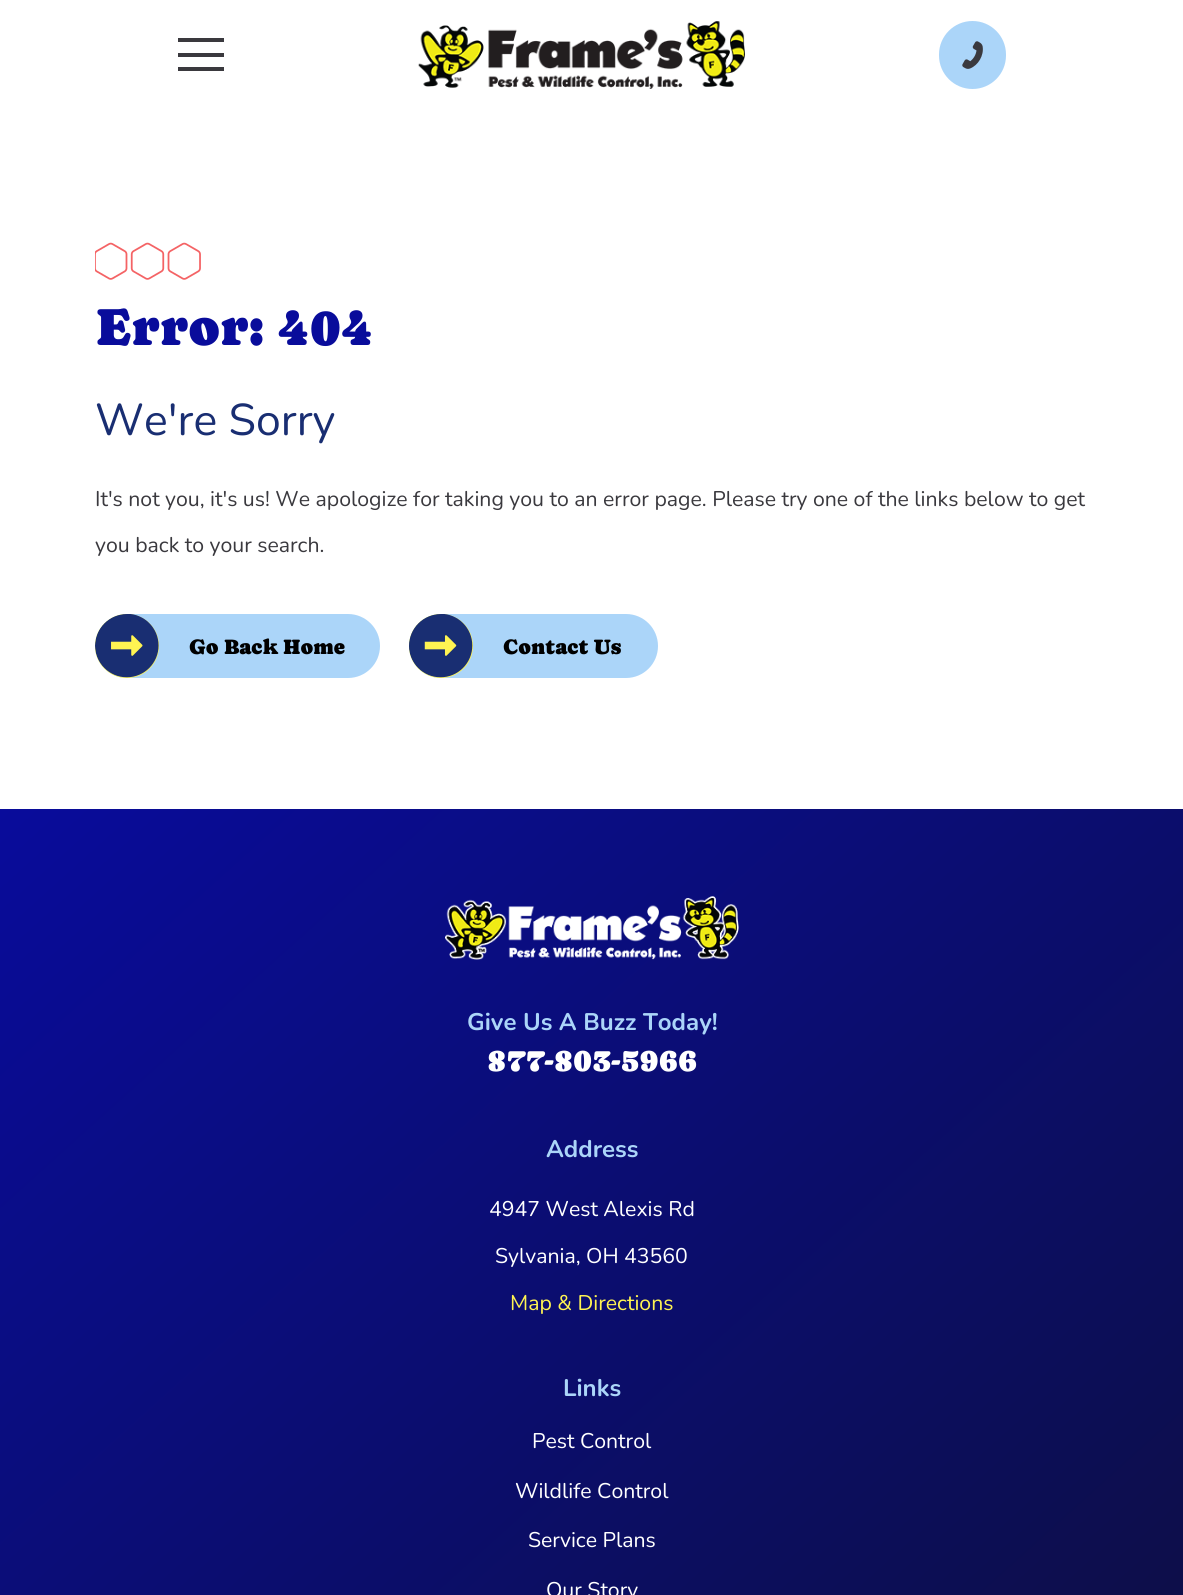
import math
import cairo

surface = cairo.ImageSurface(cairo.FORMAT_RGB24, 1183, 1595)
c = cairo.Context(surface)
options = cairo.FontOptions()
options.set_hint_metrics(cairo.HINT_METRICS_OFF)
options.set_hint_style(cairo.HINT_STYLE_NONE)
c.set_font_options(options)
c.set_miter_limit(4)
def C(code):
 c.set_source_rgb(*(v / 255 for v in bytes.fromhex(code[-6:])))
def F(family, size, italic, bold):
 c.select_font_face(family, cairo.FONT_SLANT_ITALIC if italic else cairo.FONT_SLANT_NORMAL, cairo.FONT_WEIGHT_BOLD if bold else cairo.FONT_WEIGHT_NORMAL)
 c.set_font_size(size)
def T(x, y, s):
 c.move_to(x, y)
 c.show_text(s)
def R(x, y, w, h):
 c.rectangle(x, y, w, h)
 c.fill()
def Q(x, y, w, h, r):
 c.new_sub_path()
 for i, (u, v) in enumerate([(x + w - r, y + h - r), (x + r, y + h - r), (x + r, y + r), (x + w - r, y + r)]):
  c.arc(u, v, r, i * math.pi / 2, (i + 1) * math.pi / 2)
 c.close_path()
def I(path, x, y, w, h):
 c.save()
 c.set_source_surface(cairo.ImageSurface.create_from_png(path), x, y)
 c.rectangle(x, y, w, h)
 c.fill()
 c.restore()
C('ffffff')
c.paint()
C('3a393e')
R(178,38,46,4)
R(178,53,46,4)
R(178,67,46,4)
I('1.png',418,21,327,68)
C('abd5f9')
Q(939,21,67,68,33.5)
c.fill()
I('2.png',962,41,21,28)
I('3.png',95,242,106,38)
F('Caprasimo',53,0,0)
C('090c9b')
T(95,345,'Error: 404')
F('Nunito',44.5,0,0)
C('192e72')
T(95,435,'We\'re Sorry')
F('Nunito',21.25,0,0)
C('3a393e')
T(95,506,'It\'s not you, it\'s us! We apologize for taking you to an error page. Please try one of the links below to get')
T(95,552,'you back to your search.')
C('abd5f9')
Q(95,614,285,64,32)
c.fill()
C('fff452')
c.arc(127,646,32,0,2 * math.pi)
c.fill()
I('4.png',95,614,64,64)
F('Caprasimo',21.25,0,0)
C('000000')
T(189,654,'Go Back Home')
C('abd5f9')
Q(409,614,249,64,32)
c.fill()
C('fff452')
c.arc(441,646,32,0,2 * math.pi)
c.fill()
I('5.png',409,614,64,64)
C('000000')
T(503,654,'Contact Us')
gradient = cairo.LinearGradient(1183,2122,.5,808)
gradient.add_color_stop_rgba(0,0.055,0.059,0.196,1)
gradient.add_color_stop_rgba(1,0.035,0.047,0.608,1)
c.set_source(gradient)
R(0,809,1183,786)
I('6.png',445,896,294,64)
F('Nunito',24,0,1)
C('abd5f9')
T(467,1030,'Give Us A Buzz Today!')
F('Caprasimo',32,0,0)
C('ffffff')
T(487,1071,'877-803-5966')
F('Nunito',24,0,1)
C('abd5f9')
T(546,1157,'Address')
F('Nunito',21.25,0,0)
C('ffffff')
T(489,1216,'4947 West Alexis Rd')
T(495,1263,'Sylvania, OH 43560')
C('fff452')
T(510,1310,'Map & Directions')
F('Nunito',24,0,1)
C('abd5f9')
T(563,1396,'Links')
F('Nunito',21.25,0,0)
C('ffffff')
T(532,1448,'Pest Control')
T(515,1498,'Wildlife Control')
T(528,1547,'Service Plans')
T(546,1597,'Our Story')
surface.write_to_png('o.png')
